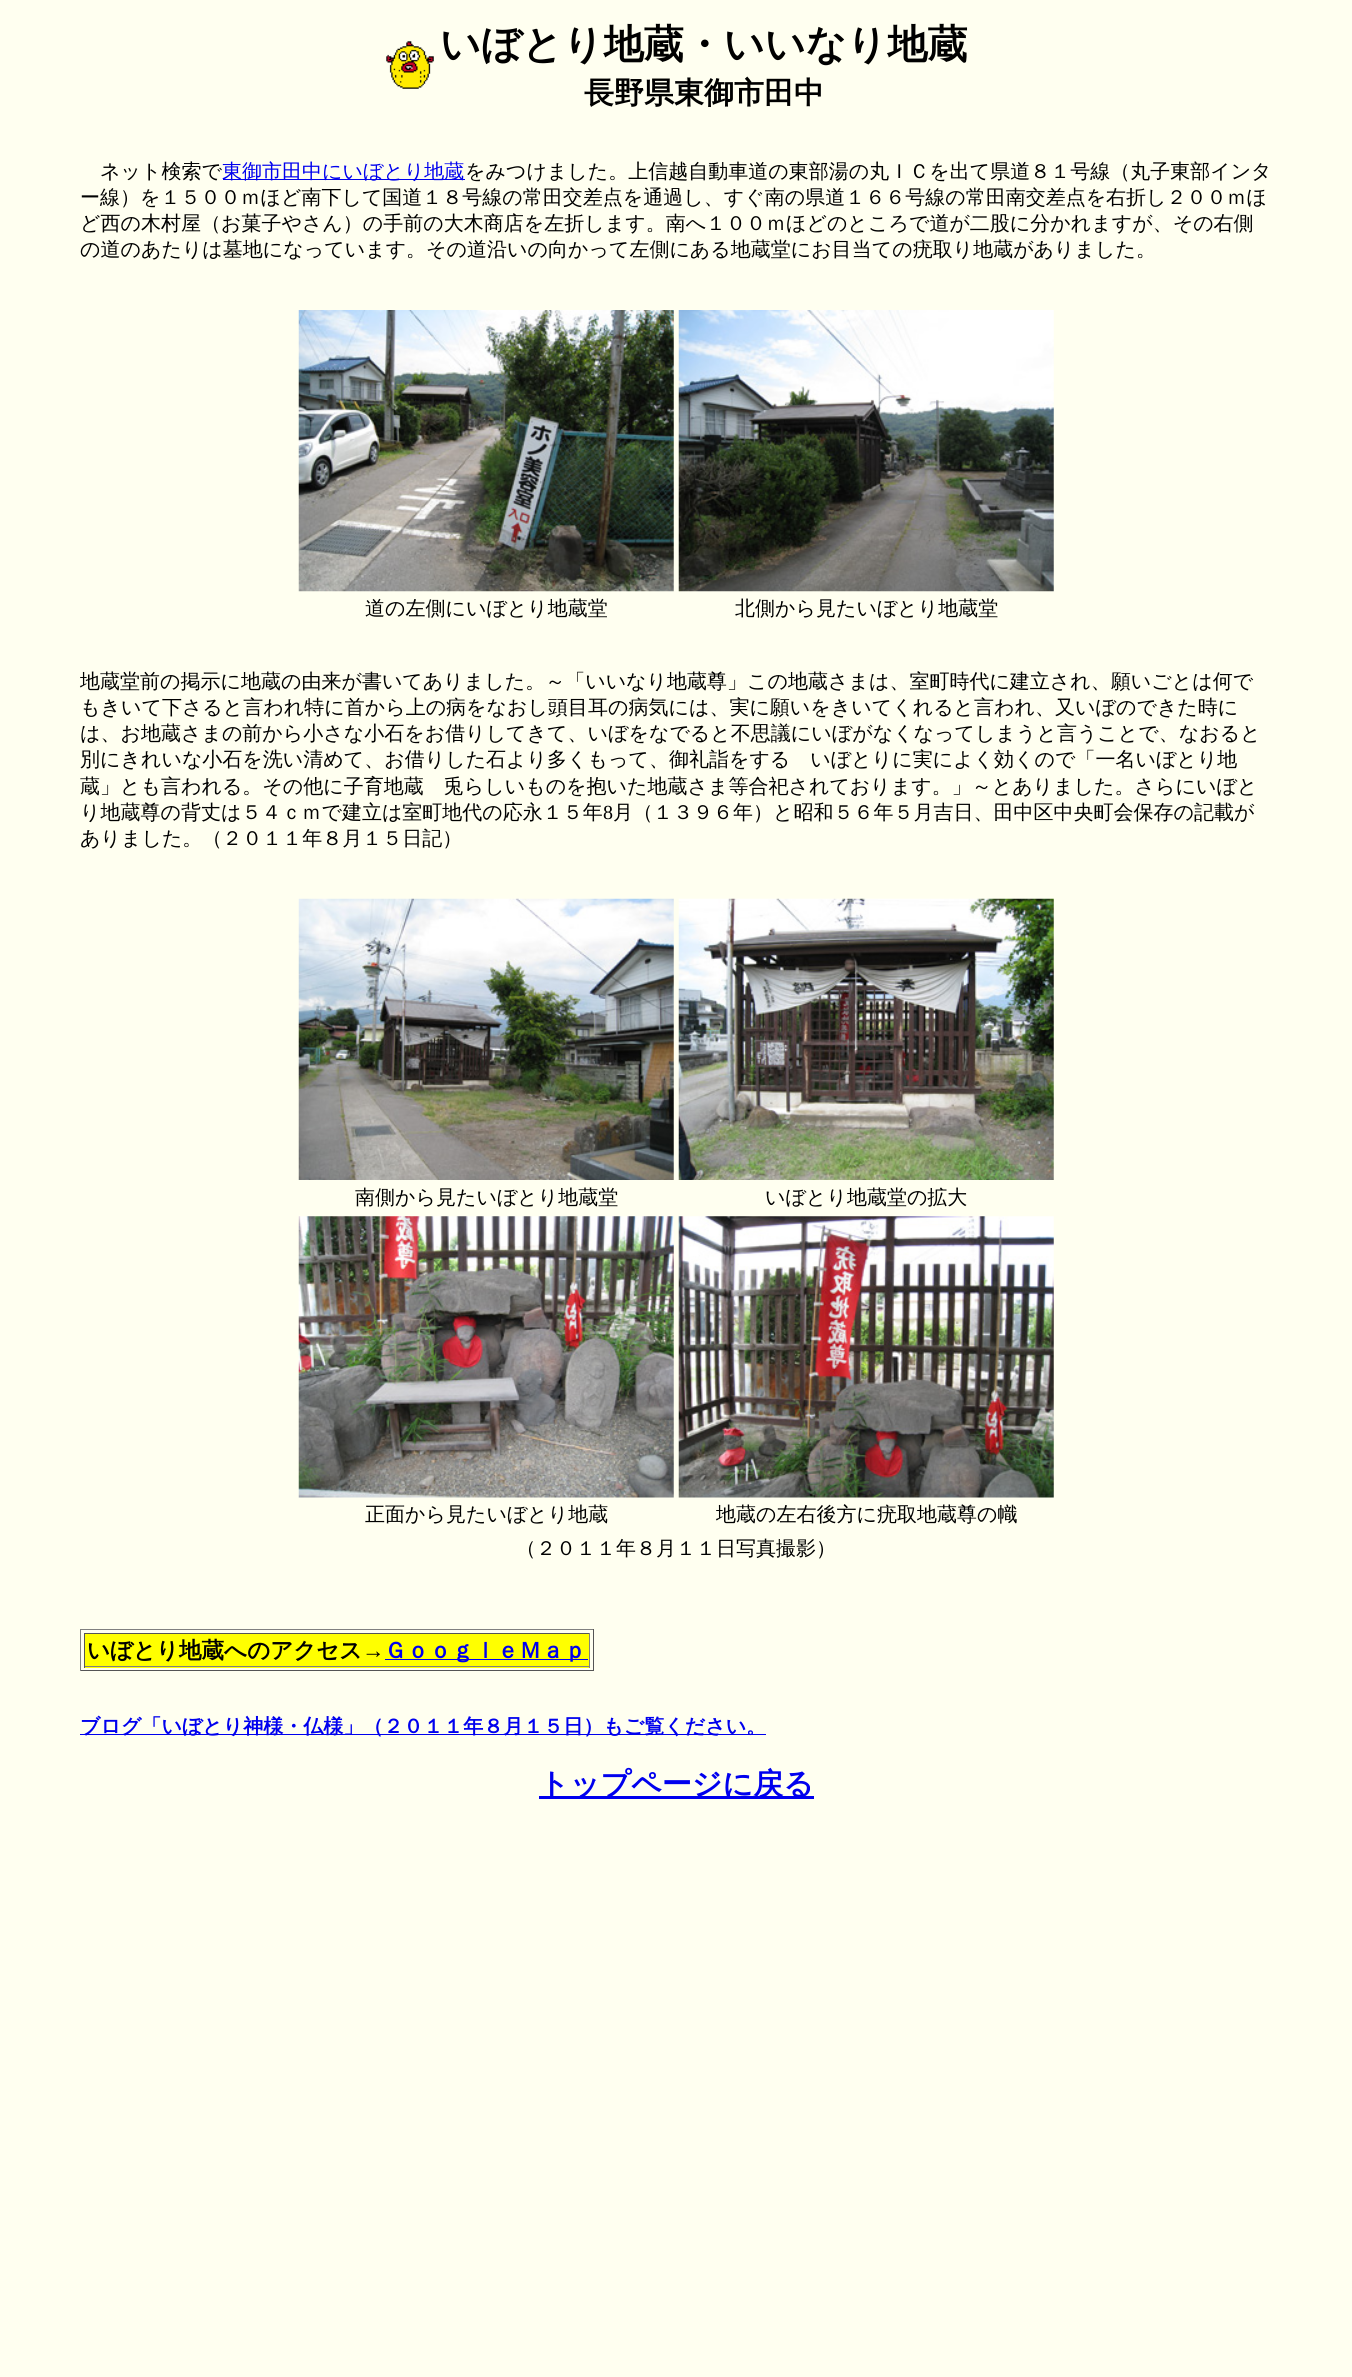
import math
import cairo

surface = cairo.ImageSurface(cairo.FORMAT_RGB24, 1352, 2377)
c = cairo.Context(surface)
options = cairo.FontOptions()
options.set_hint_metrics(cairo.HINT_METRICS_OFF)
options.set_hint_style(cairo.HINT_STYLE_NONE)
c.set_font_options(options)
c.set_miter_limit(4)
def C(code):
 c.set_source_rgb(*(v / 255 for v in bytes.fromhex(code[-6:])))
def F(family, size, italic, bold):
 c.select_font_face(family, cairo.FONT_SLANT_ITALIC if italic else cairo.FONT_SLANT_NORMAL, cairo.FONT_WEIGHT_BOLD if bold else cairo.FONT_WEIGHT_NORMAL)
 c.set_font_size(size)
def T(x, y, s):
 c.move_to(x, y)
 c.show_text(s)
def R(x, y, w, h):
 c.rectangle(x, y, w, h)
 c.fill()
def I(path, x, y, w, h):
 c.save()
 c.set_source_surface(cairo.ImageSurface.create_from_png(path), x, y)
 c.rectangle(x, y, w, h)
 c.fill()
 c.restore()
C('fffff0')
c.paint()
I('1.png',386,41,48,48)
F('WenQuanYi Zen Hei',40,0,1)
C('000000')
T(440,58,'いぼとり地蔵・いいなり地蔵')
F('WenQuanYi Zen Hei',30,0,1)
T(584,103,'長野県東御市田中')
F('WenQuanYi Zen Hei Medium',20,0,0)
T(100,178,'ネット検索で')
C('0000ee')
R(223,179,242,1)
T(222,178,'東御市田中にいぼとり地蔵')
C('000000')
T(465,178,'をみつけました。上信越自動車道の東部湯の丸ＩＣを出て県道８１号線（丸子東部インタ')
T(80,204,'ー線）を１５００ｍほど南下して国道１８号線の常田交差点を通過し、すぐ南の県道１６６号線の常田南交差点を右折し２００ｍほ')
T(80,230,'ど西の木村屋（お菓子やさん）の手前の大木商店を左折します。南へ１００ｍほどのところで道が二股に分かれますが、その右側')
T(80,256,'の道のあたりは墓地になっています。その道沿いの向かって左側にある地蔵堂にお目当ての疣取り地蔵がありました。')
I('2.png',298,310,376,282)
I('3.png',678,310,376,282)
T(365,615,'道の左側にいぼとり地蔵堂')
T(735,615,'北側から見たいぼとり地蔵堂')
T(80,688,'地蔵堂前の掲示に地蔵の由来が書いてありました。～「いいなり地蔵尊」この地蔵さまは、室町時代に建立され、願いごとは何で')
T(80,714,'もきいて下さると言われ特に首から上の病をなおし頭目耳の病気には、実に願いをきいてくれると言われ、又いぼのできた時に')
T(80,740,'は、お地蔵さまの前から小さな小石をお借りしてきて、いぼをなでると不思議にいぼがなくなってしまうと言うことで、なおると')
T(80,766,'別にきれいな小石を洗い清めて、お借りした石より多くもって、御礼詣をする　いぼとりに実によく効くので「一名いぼとり地')
T(80,793,'蔵」とも言われる。その他に子育地蔵　兎らしいものを抱いた地蔵さま等合祀されております。」～とありました。さらにいぼと')
T(80,819,'り地蔵尊の背丈は５４ｃｍで建立は室町地代の応永１５年')
F('Liberation Serif',20,0,0)
T(603,819,'8')
F('WenQuanYi Zen Hei Medium',20,0,0)
T(613,819,'月（１３９６年）と昭和５６年５月吉日、田中区中央町会保存の記載が')
T(80,845,'ありました。（２０１１年８月１５日記）')
I('4.png',298,898,376,282)
I('5.png',678,898,376,282)
T(355,1204,'南側から見たいぼとり地蔵堂')
T(765,1204,'いぼとり地蔵堂の拡大')
I('6.png',298,1216,376,282)
I('7.png',678,1216,376,282)
T(365,1521,'正面から見たいぼとり地蔵')
T(716,1521,'地蔵の左右後方に疣取地蔵尊の幟')
T(516,1555,'（２０１１年８月１１日写真撮影）')
C('808080')
R(80,1629,514,1)
C('555555')
R(593,1629,1,42)
R(80,1670,514,1)
C('808080')
R(80,1629,1,42)
C('ffff00')
R(85,1634,504,34)
C('555555')
R(84,1633,506,1)
C('808080')
R(589,1633,1,35)
R(84,1666,506,1)
C('555555')
R(84,1633,1,35)
F('WenQuanYi Zen Hei',22.5,0,1)
C('000000')
T(87,1658,'いぼとり地蔵へのアクセス')
F('Liberation Serif',22.5,0,1)
T(362,1658,'→')
C('0000ee')
R(385,1659,203,1)
F('WenQuanYi Zen Hei',22.5,0,1)
T(384,1658,'ＧｏｏｇｌｅＭａｐ')
R(80,1734,686,1)
F('WenQuanYi Zen Hei',20,0,1)
T(80,1733,'ブログ「いぼとり神様・仏様」（２０１１年８月１５日）もご覧ください。')
R(539,1796,275,3)
F('WenQuanYi Zen Hei',30,0,1)
T(539,1794,'トップページに戻る')
surface.write_to_png('o.png')
